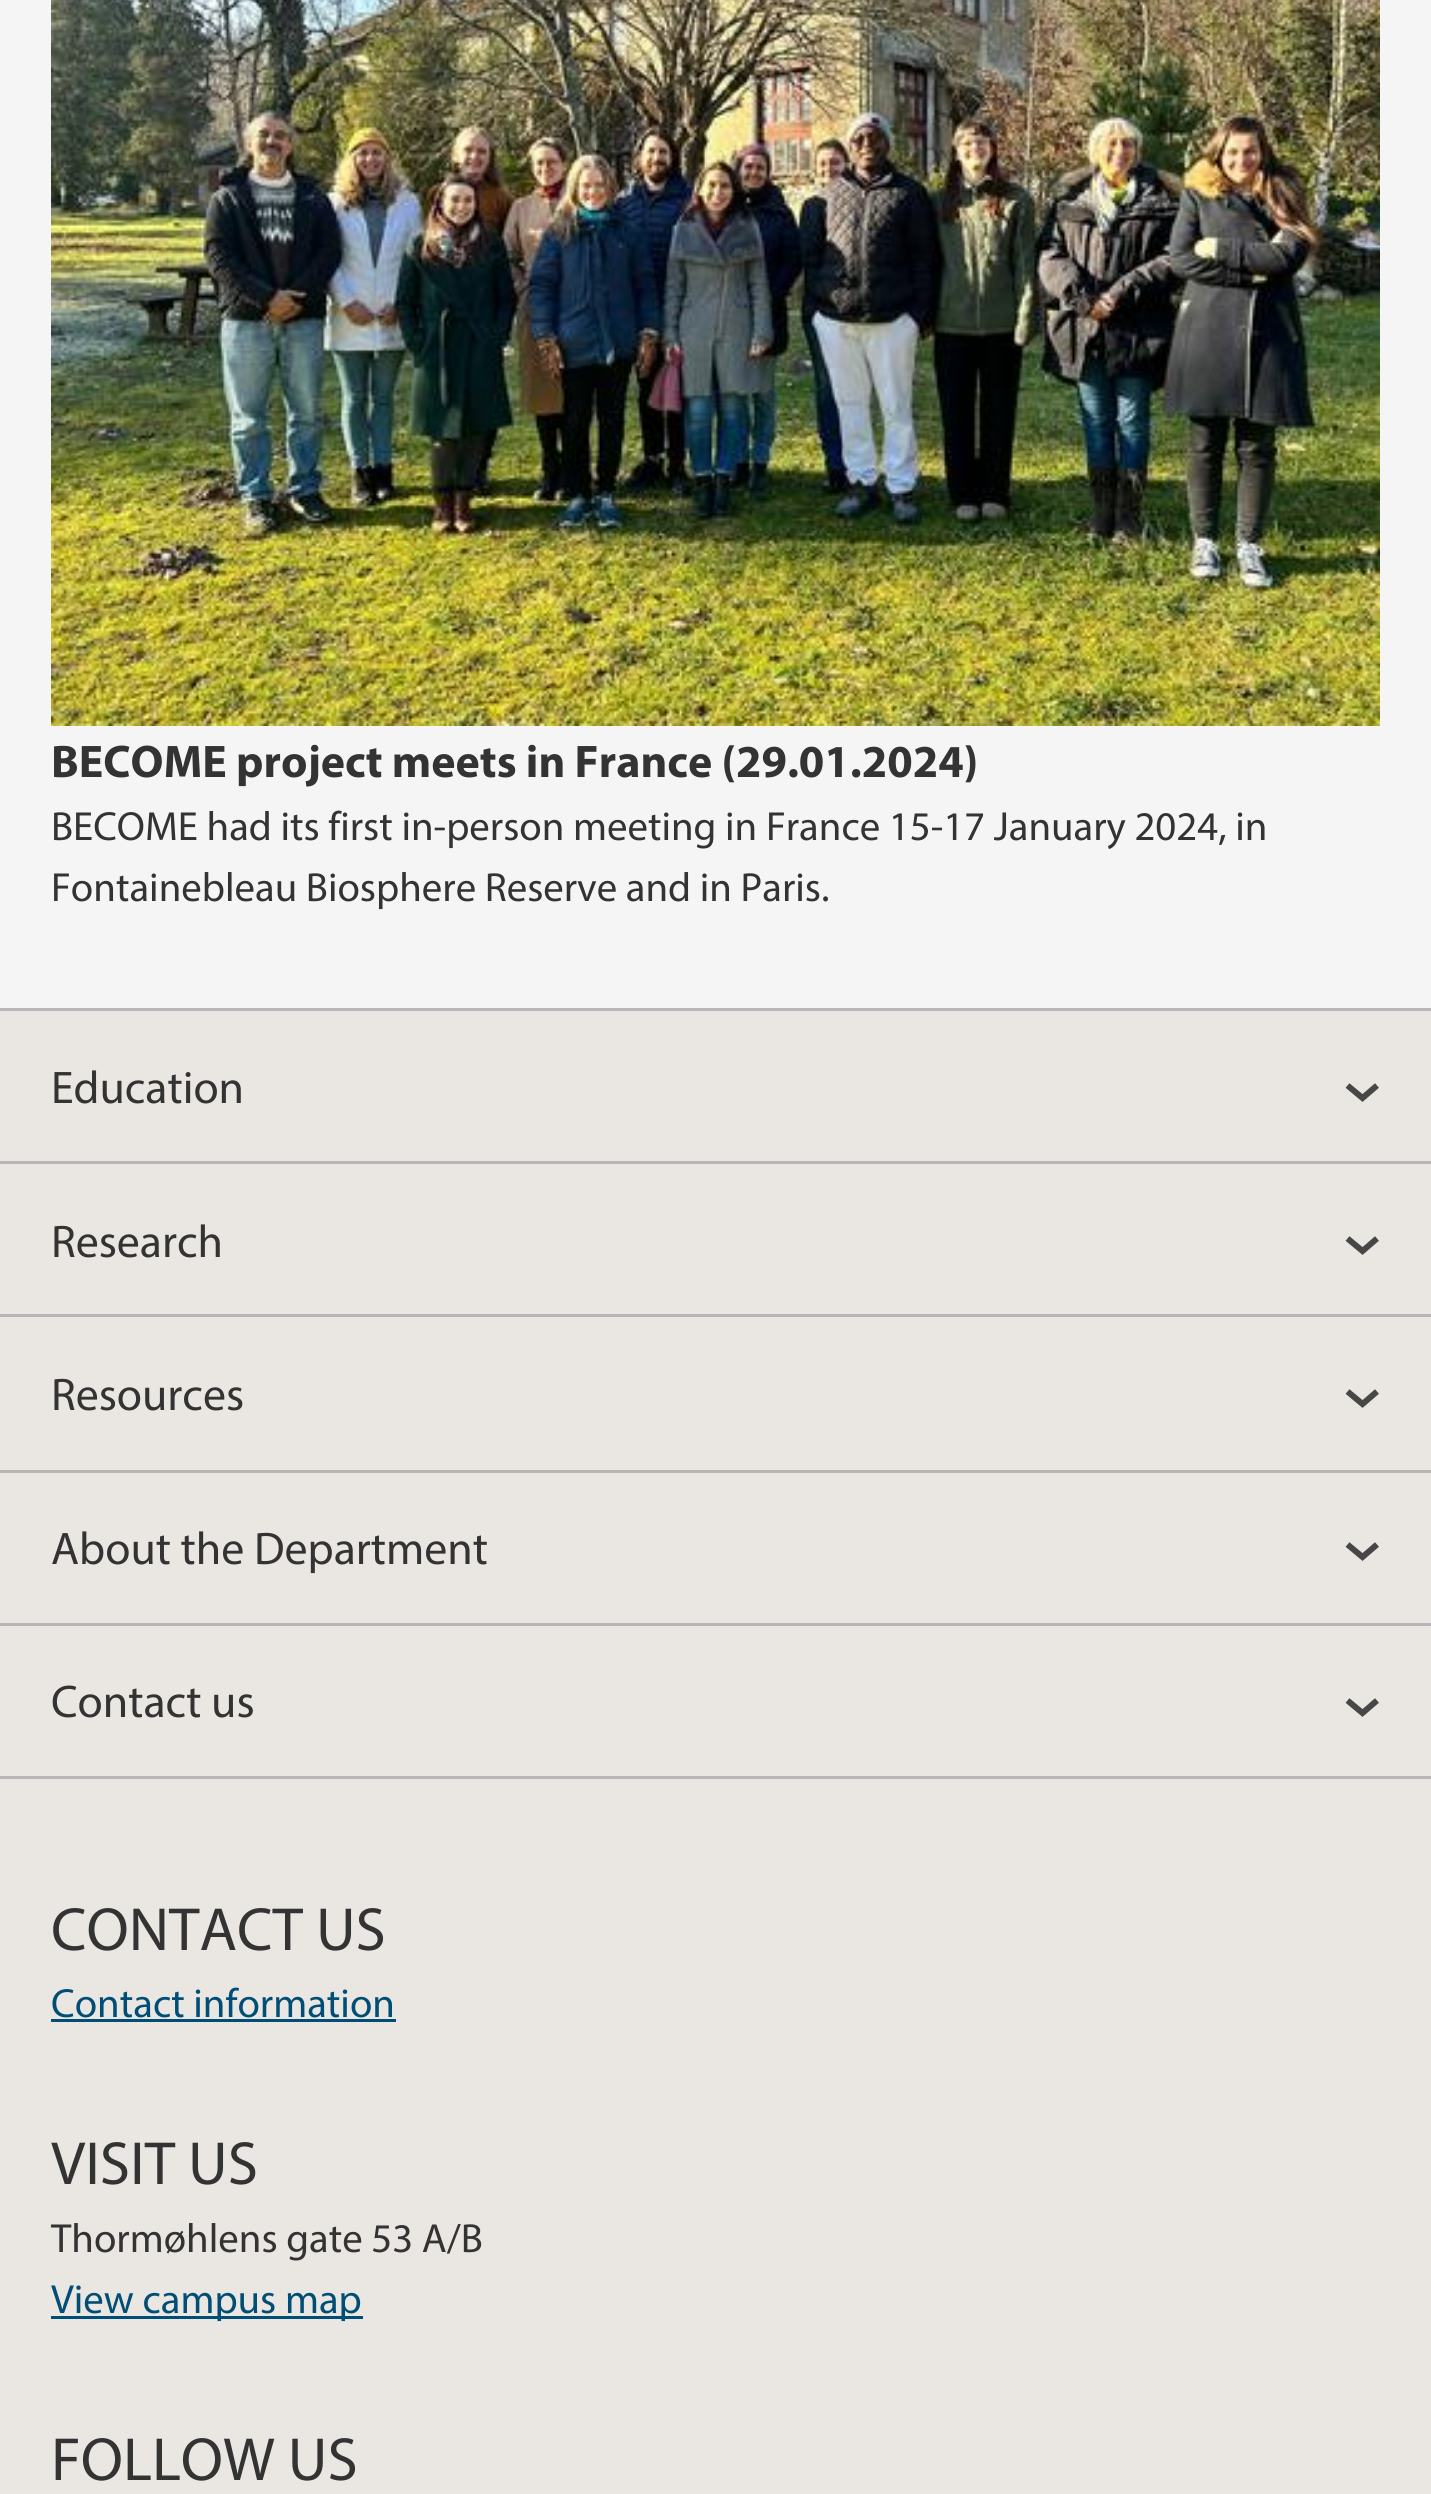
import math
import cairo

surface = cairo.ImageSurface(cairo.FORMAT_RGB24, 1431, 2494)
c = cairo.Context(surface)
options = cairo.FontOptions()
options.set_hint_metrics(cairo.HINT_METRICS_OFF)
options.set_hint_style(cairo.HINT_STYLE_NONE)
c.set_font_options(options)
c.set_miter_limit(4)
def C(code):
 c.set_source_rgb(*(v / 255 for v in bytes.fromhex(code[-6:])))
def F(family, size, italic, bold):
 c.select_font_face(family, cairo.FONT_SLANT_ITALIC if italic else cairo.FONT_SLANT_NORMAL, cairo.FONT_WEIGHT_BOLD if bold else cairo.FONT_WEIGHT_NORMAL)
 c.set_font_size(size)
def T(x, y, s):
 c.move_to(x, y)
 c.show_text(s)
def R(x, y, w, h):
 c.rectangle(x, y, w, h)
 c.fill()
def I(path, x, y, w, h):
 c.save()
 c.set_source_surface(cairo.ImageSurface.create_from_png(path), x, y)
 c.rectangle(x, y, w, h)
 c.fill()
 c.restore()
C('f5f5f5')
c.paint()
I('1.png',51,0,1329,726)
F('Myriad',45.9,0,1)
C('333333')
T(51,777,'BECOME project meets in France (29.01.2024)')
F('Myriad',40.8,0,0)
T(51,840,'BECOME had its first in-person meeting in France 15-17 January 2024, in')
T(51,901,'Fontainebleau Biosphere Reserve and in Paris.')
C('eae6e2')
R(0,1011,1431,1483)
C('b7b7b7')
R(0,1008,1431,3)
c.new_path()
c.move_to(1377,1085.5)
c.line_to(1362.5,1098)
c.line_to(1347.5,1085.5)
C('474747')
c.set_line_width(6)
c.stroke()
C('b7b7b7')
R(0,1161,1431,3)
F('Myriad',45.9,0,0)
C('333333')
T(51,1103,'Education')
c.new_path()
c.move_to(1377,1238.5)
c.line_to(1362.5,1251)
c.line_to(1347.5,1238.5)
C('474747')
c.stroke()
C('b7b7b7')
R(0,1314,1431,3)
C('333333')
T(51,1257,'Research')
c.new_path()
c.move_to(1377,1391.5)
c.line_to(1362.5,1404)
c.line_to(1347.5,1391.5)
C('474747')
c.stroke()
C('b7b7b7')
R(0,1470,1431,3)
C('333333')
T(51,1410,'Resources')
c.new_path()
c.move_to(1377,1544.5)
c.line_to(1362.5,1557)
c.line_to(1347.5,1544.5)
C('474747')
c.stroke()
C('b7b7b7')
R(0,1623,1431,3)
C('333333')
T(51,1564,'About the Department')
c.new_path()
c.move_to(1377,1700.5)
c.line_to(1362.5,1713)
c.line_to(1347.5,1700.5)
C('474747')
c.stroke()
C('b7b7b7')
R(0,1776,1431,3)
C('333333')
T(51,1717,'Contact us')
F('Myriad',61.25,0,0)
T(51,1950,'CONTACT US')
F('Myriad',40.8,0,0)
C('004e75')
T(51,2017,'Contact information')
R(51,2019,345,3)
F('Myriad',61.25,0,0)
C('333333')
T(51,2184,'VISIT US')
F('Myriad',40.8,0,0)
T(51,2252,'Thormøhlens gate 53 A/B')
C('004e75')
R(51,2316,312,3)
T(51,2313,'View campus map')
F('Myriad',61.25,0,0)
C('333333')
T(51,2480,'FOLLOW US')
surface.write_to_png('o.png')
